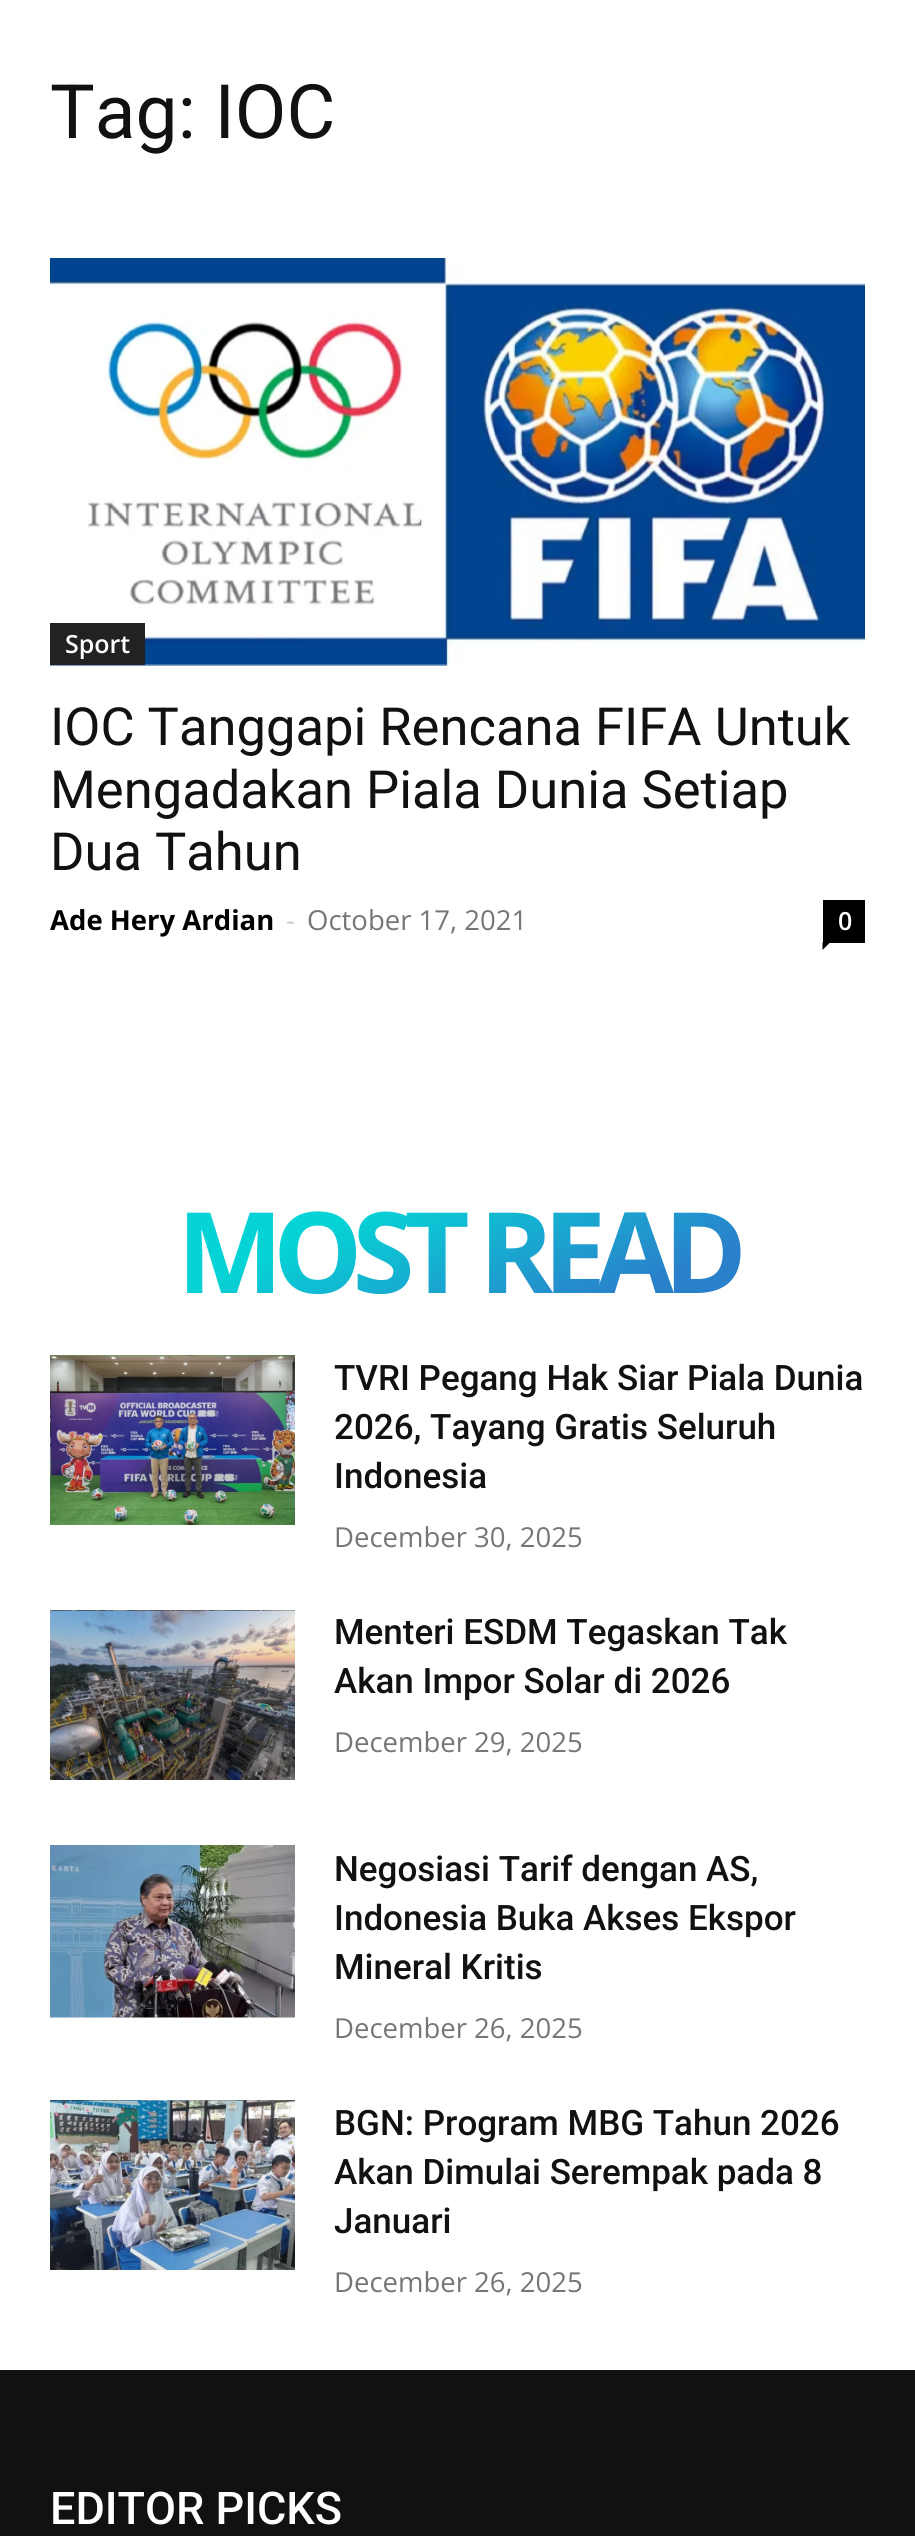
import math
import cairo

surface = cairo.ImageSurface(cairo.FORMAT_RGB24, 915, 2536)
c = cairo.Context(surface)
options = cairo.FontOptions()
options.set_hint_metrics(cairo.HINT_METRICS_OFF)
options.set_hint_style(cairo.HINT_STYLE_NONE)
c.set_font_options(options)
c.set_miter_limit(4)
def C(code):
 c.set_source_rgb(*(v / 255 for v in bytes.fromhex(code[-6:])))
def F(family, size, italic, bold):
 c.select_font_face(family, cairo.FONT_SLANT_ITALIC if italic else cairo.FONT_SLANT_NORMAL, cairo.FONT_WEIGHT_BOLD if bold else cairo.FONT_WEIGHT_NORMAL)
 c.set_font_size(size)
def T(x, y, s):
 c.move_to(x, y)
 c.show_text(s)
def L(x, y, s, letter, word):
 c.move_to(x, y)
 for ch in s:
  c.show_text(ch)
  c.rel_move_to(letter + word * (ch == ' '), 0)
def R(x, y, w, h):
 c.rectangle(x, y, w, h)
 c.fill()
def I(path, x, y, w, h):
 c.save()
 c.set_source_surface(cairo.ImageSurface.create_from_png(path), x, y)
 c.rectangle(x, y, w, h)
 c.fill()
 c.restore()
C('ffffff')
c.paint()
F('Roboto',75,0,0)
C('111111')
T(50,138,'Tag: IOC')
I('1.png',50,258,815,408)
C('222222')
R(50,623,95,42)
F('Open Sans SemiBold',25,0,0)
C('ffffff')
T(65,653,'Sport')
F('Roboto',52.5,0,0)
C('111111')
T(50,745,'IOC Tanggapi Rencana FIFA Untuk')
T(50,808,'Mengadakan Piala Dunia Setiap')
T(50,870,'Dua Tahun')
F('Open Sans',27.5,0,1)
C('000000')
T(50,930,'Ade Hery Ardian')
F('Open Sans',27.5,0,0)
C('cccccc')
T(286,930,'-')
C('767676')
T(307,930,'October 17, 2021')
C('000000')
R(823,900,42,43)
F('Open Sans SemiBold',25,0,0)
C('ffffff')
T(838,930,'0')
C('000000')
c.new_path()
c.move_to(822.5,942.5)
c.line_to(830,942.5)
c.line_to(822.5,950)
c.close_path()
c.fill()
F('Open Sans',112.5,0,1)
gradient = cairo.LinearGradient(384,1084,531,1413)
gradient.add_color_stop_rgba(.3,0.024,0.827,0.835,1)
gradient.add_color_stop_rgba(.8,0.165,0.506,0.796,1)
c.set_source(gradient)
L(177,1293,'MOST READ',-10,0)
I('2.png',50,1355,245,170)
F('Roboto Medium',35,0,0)
C('111111')
T(334,1390,'TVRI Pegang Hak Siar Piala Dunia')
T(334,1439,'2026, Tayang Gratis Seluruh')
T(334,1488,'Indonesia')
F('Open Sans',27.5,0,0)
C('767676')
T(334,1547,'December 30, 2025')
I('3.png',50,1610,245,170)
F('Roboto Medium',35,0,0)
C('111111')
T(334,1644,'Menteri ESDM Tegaskan Tak')
T(334,1693,'Akan Impor Solar di 2026')
F('Open Sans',27.5,0,0)
C('767676')
T(334,1752,'December 29, 2025')
I('4.png',50,1845,245,173)
F('Roboto Medium',35,0,0)
C('111111')
T(334,1881,'Negosiasi Tarif dengan AS,')
T(334,1930,'Indonesia Buka Akses Ekspor')
T(334,1979,'Mineral Kritis')
F('Open Sans',27.5,0,0)
C('767676')
T(334,2038,'December 26, 2025')
I('5.png',50,2100,245,170)
F('Roboto Medium',35,0,0)
C('111111')
T(334,2135,'BGN: Program MBG Tahun 2026')
T(334,2184,'Akan Dimulai Serempak pada 8')
T(334,2233,'Januari')
F('Open Sans',27.5,0,0)
C('767676')
T(334,2292,'December 26, 2025')
C('111111')
R(0,2370,915,166)
F('Roboto Medium',45,0,0)
C('ffffff')
T(50,2524,'EDITOR PICKS')
surface.write_to_png('o.png')
